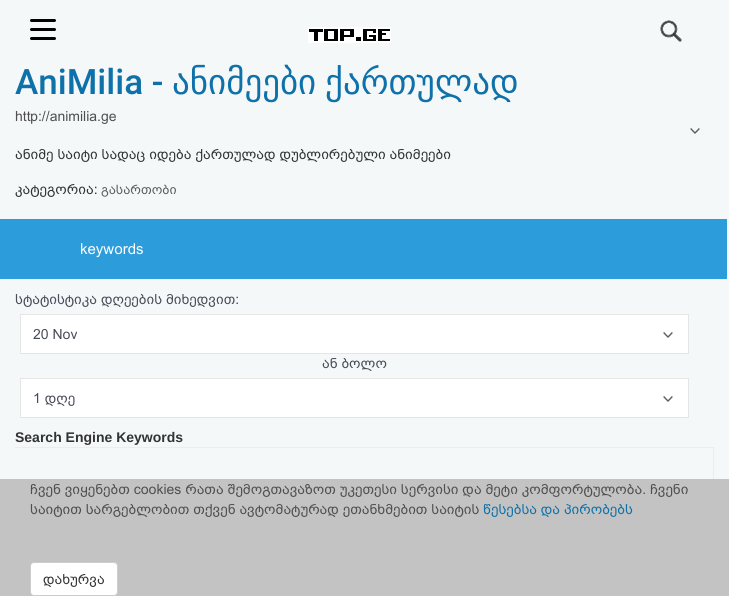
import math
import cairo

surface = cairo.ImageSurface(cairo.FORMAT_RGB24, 729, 596)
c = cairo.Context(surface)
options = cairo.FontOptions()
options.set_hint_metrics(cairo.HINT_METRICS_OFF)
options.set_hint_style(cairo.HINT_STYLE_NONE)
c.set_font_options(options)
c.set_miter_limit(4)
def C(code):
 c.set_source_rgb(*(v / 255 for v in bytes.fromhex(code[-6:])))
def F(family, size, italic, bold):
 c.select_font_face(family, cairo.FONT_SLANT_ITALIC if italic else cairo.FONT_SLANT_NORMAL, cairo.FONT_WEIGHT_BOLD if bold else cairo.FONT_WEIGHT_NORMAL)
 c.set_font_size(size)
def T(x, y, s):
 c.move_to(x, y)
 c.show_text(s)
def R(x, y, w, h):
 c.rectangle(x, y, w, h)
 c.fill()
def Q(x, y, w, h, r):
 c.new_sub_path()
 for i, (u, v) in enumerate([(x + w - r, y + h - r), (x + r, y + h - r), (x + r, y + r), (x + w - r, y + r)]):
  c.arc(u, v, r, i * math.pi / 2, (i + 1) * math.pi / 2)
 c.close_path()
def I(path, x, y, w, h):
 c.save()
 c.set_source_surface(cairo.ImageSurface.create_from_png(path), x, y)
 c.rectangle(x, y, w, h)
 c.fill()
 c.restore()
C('f4f8f9')
c.paint()
C('ebeeee')
R(713,447,1,32)
C('000000')
Q(30,19,26,3,1.5)
c.fill()
Q(30,28,26,3,1.5)
c.fill()
Q(30,37,26,3,1.5)
c.fill()
I('1.png',308,27,83,16)
I('2.png',660,20,22,22)
I('3.png',690,128,10,6)
F('Roboto Medium',35,0,0)
C('0e71a9')
T(15,94,'AniMilia -')
F('DejaVu Sans',35,0,0)
T(172,94,'ანიმეები')
T(325,94,'ქართულად')
F('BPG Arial',14,0,0)
C('4f4f4f')
T(15,121,'http://animilia.ge')
C('333333')
T(15,159,'ანიმე საიტი სადაც იდება ქართულად დუბლირებული ანიმეები')
T(15,194,'კატეგორია:')
F('BPG Arial',13,0,0)
C('5d5d5d')
T(101,194,'გასართობი')
C('2d9cdb')
R(0,219,727,60)
F('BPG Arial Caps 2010',15,0,0)
C('ffffff')
T(80,254,'keywords')
F('BPG Arial',14,0,0)
C('494c59')
T(15,304,'სტატისტიკა დღეების მიხედვით:')
C('ffffff')
c.rectangle(20.5,314.5,668,39)
c.fill_preserve()
C('e5e5e5')
c.set_line_width(1)
c.stroke()
C('494c59')
T(33,339,'20 Nov')
I('4.png',663,332,10,6)
T(322,368,'ან ბოლო')
C('ffffff')
c.rectangle(20.5,378.5,668,39)
c.fill_preserve()
C('e5e5e5')
c.stroke()
C('494c59')
T(33,403,'1 დღე')
I('4.png',663,396,10,6)
F('Liberation Sans',14,0,1)
C('333333')
T(15,442,'Search Engine Keywords')
C('ebeeee')
R(15,447,699,1)
C('e6e8e8')
R(713,447,1,1)
C('c3c3c3')
R(0,479,729,117)
F('BPG Arial',14,0,0)
C('4f4f4f')
T(30,494,'ჩვენ ვიყენებთ cookies რათა შემოგთავაზოთ უკეთესი სერვისი და მეტი კომფორტულობა. ჩვენი')
T(30,514,'საიტით სარგებლობით თქვენ ავტომატურად ეთანხმებით საიტის')
C('0e71a9')
T(483,514,'წესებსა და პირობებს')
C('ffffff')
Q(30.5,562.5,87,33,3.5)
c.fill_preserve()
C('cccccc')
c.stroke()
C('333333')
T(43,584,'დახურვა')
surface.write_to_png('o.png')
